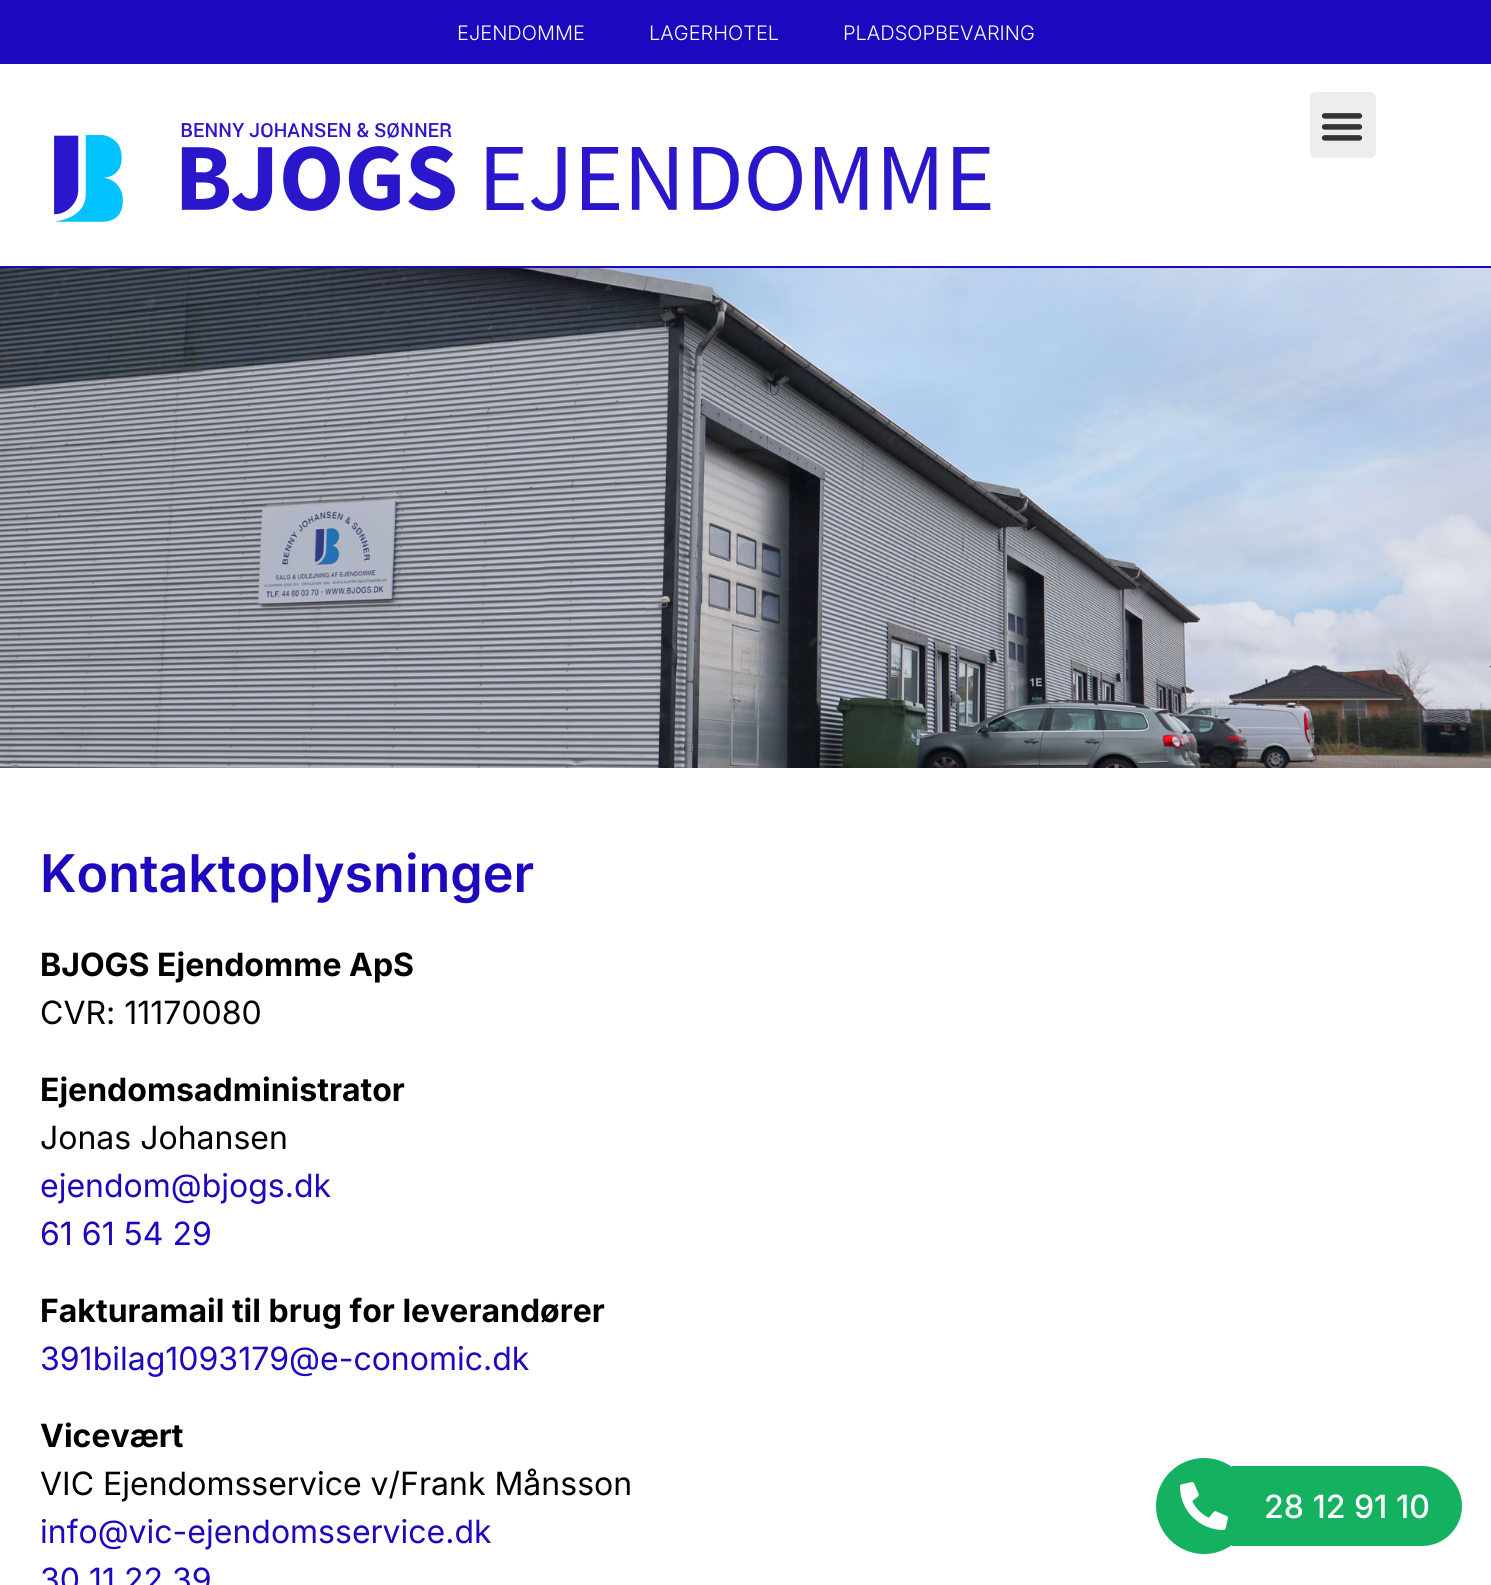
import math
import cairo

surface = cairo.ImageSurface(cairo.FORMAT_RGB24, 1491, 1585)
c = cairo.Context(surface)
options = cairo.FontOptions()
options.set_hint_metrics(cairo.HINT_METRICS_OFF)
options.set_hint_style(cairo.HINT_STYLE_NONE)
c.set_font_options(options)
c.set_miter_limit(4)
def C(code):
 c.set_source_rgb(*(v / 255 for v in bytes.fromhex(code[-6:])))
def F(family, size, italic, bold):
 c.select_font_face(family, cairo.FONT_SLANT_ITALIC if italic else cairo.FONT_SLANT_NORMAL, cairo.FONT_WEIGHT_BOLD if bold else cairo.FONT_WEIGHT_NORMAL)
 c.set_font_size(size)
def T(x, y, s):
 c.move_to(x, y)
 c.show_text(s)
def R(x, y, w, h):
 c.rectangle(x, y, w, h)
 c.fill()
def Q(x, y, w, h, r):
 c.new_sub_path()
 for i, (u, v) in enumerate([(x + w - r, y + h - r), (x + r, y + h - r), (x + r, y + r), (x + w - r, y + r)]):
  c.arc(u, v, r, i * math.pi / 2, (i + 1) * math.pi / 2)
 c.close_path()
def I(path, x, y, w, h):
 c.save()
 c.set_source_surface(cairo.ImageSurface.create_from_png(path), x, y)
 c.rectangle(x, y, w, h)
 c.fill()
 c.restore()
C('ffffff')
c.paint()
C('1c09bf')
R(0,0,1491,64)
F('Inter Light',20,0,0)
C('ffffff')
T(457,40,'EJENDOMME')
T(649,40,'LAGERHOTEL')
T(843,40,'PLADSOPBEVARING')
C('1c09bf')
R(0,266,1491,2)
I('1.png',54,122,937,100)
C('ededed')
Q(1310,92,66,66,6)
c.fill()
I('2.png',1321,113,42,28)
I('3.png',0,268,1491,500)
F('Inter SemiBold',52,0,0)
C('1c09bf')
T(40,892,'Kontaktoplysninger')
F('Inter',32,0,1)
C('000000')
T(40,976,'BJOGS Ejendomme ApS')
F('Inter',32,0,0)
T(40,1024,'CVR: 11170080')
F('Inter',32,0,1)
T(40,1101,'Ejendomsadministrator')
F('Inter',32,0,0)
T(40,1149,'Jonas Johansen')
C('1c09bf')
T(40,1197,'ejendom@bjogs.dk')
T(40,1245,'61 61 54 29')
F('Inter',32,0,1)
C('000000')
T(40,1322,'Fakturamail til brug for leverandører')
F('Inter',32,0,0)
C('1c09bf')
T(40,1370,'391bilag1093179@e-conomic.dk')
F('Inter',32,0,1)
C('000000')
T(40,1447,'Vicevært')
F('Inter',32,0,0)
T(40,1495,'VIC Ejendomsservice v/Frank Månsson')
C('1c09bf')
T(40,1543,'info@vic-ejendomsservice.dk')
T(40,1591,'30 11 22 39')
C('13b160')
c.new_path()
c.move_to(1232,1466)
c.line_to(1422,1466)
c.curve_to(1444,1466,1462,1484,1462,1506)
c.curve_to(1462,1528,1444,1546,1422,1546)
c.line_to(1232,1546)
c.close_path()
c.fill()
c.arc(1204,1506,48,0,2 * math.pi)
c.fill()
I('4.png',1180,1482,48,48)
F('Inter Medium',32,0,0)
C('ffffff')
T(1264,1518,'28 12 91 10')
surface.write_to_png('o.png')
